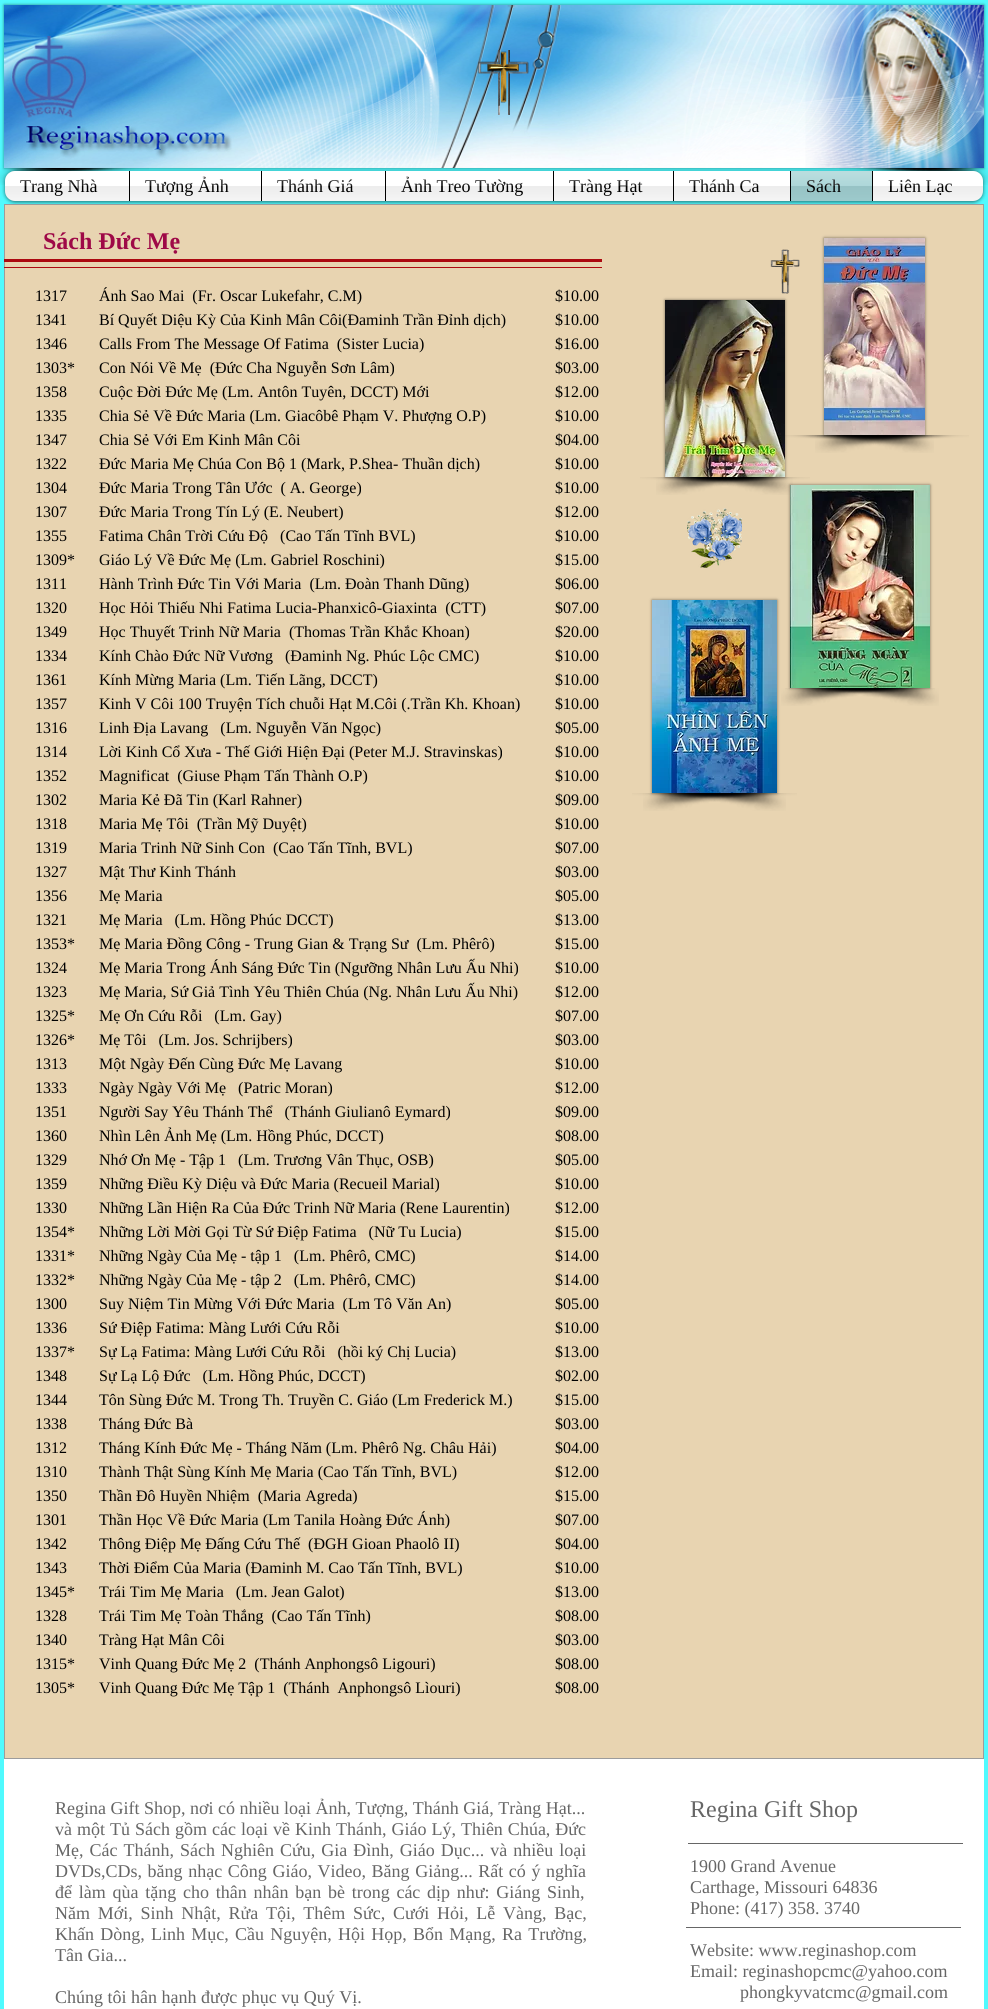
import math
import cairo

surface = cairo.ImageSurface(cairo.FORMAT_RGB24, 988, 2009)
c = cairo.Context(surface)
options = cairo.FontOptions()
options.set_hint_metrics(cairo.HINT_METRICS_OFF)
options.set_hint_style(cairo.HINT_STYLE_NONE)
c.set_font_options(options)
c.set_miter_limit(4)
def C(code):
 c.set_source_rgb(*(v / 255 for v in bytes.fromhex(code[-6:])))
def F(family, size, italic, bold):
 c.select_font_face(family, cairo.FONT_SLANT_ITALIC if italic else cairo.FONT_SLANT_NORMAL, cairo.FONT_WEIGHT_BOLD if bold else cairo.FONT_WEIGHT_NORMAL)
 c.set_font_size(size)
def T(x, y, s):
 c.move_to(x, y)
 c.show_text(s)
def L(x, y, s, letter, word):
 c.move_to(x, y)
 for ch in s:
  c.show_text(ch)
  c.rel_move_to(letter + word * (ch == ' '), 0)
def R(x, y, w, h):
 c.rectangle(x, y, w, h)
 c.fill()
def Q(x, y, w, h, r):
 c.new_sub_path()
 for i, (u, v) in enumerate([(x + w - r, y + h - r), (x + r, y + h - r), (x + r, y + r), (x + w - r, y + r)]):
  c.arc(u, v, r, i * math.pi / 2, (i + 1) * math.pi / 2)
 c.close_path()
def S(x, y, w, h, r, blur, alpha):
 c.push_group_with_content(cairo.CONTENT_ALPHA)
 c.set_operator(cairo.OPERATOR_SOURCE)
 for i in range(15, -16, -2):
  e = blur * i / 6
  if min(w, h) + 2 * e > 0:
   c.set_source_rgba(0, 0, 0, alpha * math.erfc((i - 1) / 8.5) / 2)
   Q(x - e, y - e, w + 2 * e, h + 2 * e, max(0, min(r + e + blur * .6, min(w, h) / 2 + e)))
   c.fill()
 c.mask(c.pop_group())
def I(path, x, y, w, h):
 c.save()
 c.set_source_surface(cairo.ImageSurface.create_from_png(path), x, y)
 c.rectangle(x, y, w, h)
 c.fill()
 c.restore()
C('50fafe')
c.paint()
C('000000')
S(4,5,980,163,0,1.5,.5)
I('1.png',4,5,980,163)
I('2.png',0,168,149,17)
I('3.png',839,168,149,17)
I('4.png',478,50,51,65)
S(5,172,978,30,10,2,.6)
I('5.png',5,171,978,30)
C('ffffff')
c.new_path()
c.move_to(15,171)
c.line_to(129,171)
c.line_to(129,201)
c.line_to(15,201)
c.curve_to(9.5,201,5,196.5,5,191)
c.line_to(5,181)
c.curve_to(5,175.5,9.5,171,15,171)
c.close_path()
c.fill()
F('Liberation Serif',18,0,0)
C('000000')
T(20,192,'Trang Nhà')
I('6.png',5,171,124,30)
C('ffffff')
R(130,171,131,30)
C('000000')
R(129,171,1,30)
T(145,192,'Tượng Ảnh')
I('7.png',130,176,131,25)
C('ffffff')
R(262,171,123,30)
C('000000')
R(261,171,1,30)
T(277,192,'Thánh Giá')
I('8.png',262,179,123,22)
C('ffffff')
R(386,171,167,30)
C('000000')
R(385,171,1,30)
T(401,192,'Ảnh Treo Tường')
I('9.png',386,176,167,25)
C('ffffff')
R(554,171,119,30)
C('000000')
R(553,171,1,30)
T(569,192,'Tràng Hạt')
I('10.png',554,179,119,22)
C('ffffff')
R(674,171,116,30)
C('000000')
R(673,171,1,30)
T(689,192,'Thánh Ca')
I('11.png',674,179,116,22)
C('a3d2d4')
R(791,171,81,30)
C('000000')
R(790,171,1,30)
T(806,192,'Sách')
I('12.png',791,171,81,30)
C('ffffff')
c.new_path()
c.move_to(872,171)
c.line_to(973,171)
c.curve_to(978.5,171,983,175.5,983,181)
c.line_to(983,191)
c.curve_to(983,196.5,978.5,201,973,201)
c.line_to(872,201)
c.close_path()
c.fill()
C('000000')
R(872,171,1,30)
T(888,192,'Liên Lạc')
I('13.png',873,171,110,30)
C('e8d4b1')
c.rectangle(4.5,204.5,979,1554)
c.fill_preserve()
C('9c9c9c')
c.set_line_width(1)
c.stroke()
F('Liberation Serif',24,0,1)
C('9e0947')
T(43,249,'Sách Đức Mẹ')
C('000000')
S(824,238,101,197,0,1.5,.5)
I('14.png',824,238,101,197)
I('16.png',815,435,154,18)
S(665,300,120,177,0,1.5,.5)
I('15.png',785,435,149,18)
C('ac0910')
R(4,259,598,3)
R(4,267,598,1)
I('17.png',770,249,30,45)
F('Liberation Serif',16,0,0)
C('000000')
T(35,301,'1317        Ánh Sao Mai  (Fr. Oscar Lukefahr, C.M)')
T(35,325,'1341        Bí Quyết Diệu Kỳ Của Kinh Mân Côi(Đaminh Trần Đỉnh dịch)')
T(35,349,'1346        Calls From The Message Of Fatima  (Sister Lucia)')
T(35,373,'1303*      Con Nói Về Mẹ  (Đức Cha Nguyễn Sơn Lâm)')
T(35,397,'1358        Cuộc Đời Đức Mẹ (Lm. Antôn Tuyên, DCCT) Mới')
T(35,421,'1335        Chia Sẻ Về Đức Maria (Lm. Giacôbê Phạm V. Phượng O.P)')
T(35,445,'1347        Chia Sẻ Với Em Kinh Mân Côi')
T(35,469,'1322        Đức Maria Mẹ Chúa Con Bộ 1 (Mark, P.Shea- Thuần dịch)')
T(35,493,'1304        Đức Maria Trong Tân Ước  ( A. George)')
T(35,517,'1307        Đức Maria Trong Tín Lý (E. Neubert)')
T(35,541,'1355        Fatima Chân Trời Cứu Độ   (Cao Tấn Tĩnh BVL)')
T(35,565,'1309*      Giáo Lý Về Đức Mẹ (Lm. Gabriel Roschini)')
T(35,589,'1311        Hành Trình Đức Tin Với Maria  (Lm. Đoàn Thanh Dũng)')
T(35,613,'1320        Học Hỏi Thiếu Nhi Fatima Lucia-Phanxicô-Giaxinta  (CTT)')
T(35,637,'1349        Học Thuyết Trinh Nữ Maria  (Thomas Trần Khắc Khoan)')
T(35,661,'1334        Kính Chào Đức Nữ Vương   (Đaminh Ng. Phúc Lộc CMC)')
T(35,685,'1361        Kính Mừng Maria (Lm. Tiến Lãng, DCCT)')
T(35,709,'1357        Kinh V Côi 100 Truyện Tích chuỗi Hạt M.Côi (.Trần Kh. Khoan)')
T(35,733,'1316        Linh Địa Lavang   (Lm. Nguyễn Văn Ngọc)')
T(35,757,'1314        Lời Kinh Cổ Xưa - Thế Giới Hiện Đại (Peter M.J. Stravinskas)')
T(35,781,'1352        Magnificat  (Giuse Phạm Tấn Thành O.P)')
T(35,805,'1302        Maria Kẻ Đã Tin (Karl Rahner)')
T(35,829,'1318        Maria Mẹ Tôi  (Trần Mỹ Duyệt)')
T(35,853,'1319        Maria Trinh Nữ Sinh Con  (Cao Tấn Tĩnh, BVL)')
T(35,877,'1327        Mật Thư Kinh Thánh')
T(35,901,'1356        Mẹ Maria')
T(35,925,'1321        Mẹ Maria   (Lm. Hồng Phúc DCCT)')
T(35,949,'1353*      Mẹ Maria Đồng Công - Trung Gian & Trạng Sư  (Lm. Phêrô)')
T(35,973,'1324        Mẹ Maria Trong Ánh Sáng Đức Tin (Ngưỡng Nhân Lưu Ấu Nhi)')
T(35,997,'1323        Mẹ Maria, Sứ Giả Tình Yêu Thiên Chúa (Ng. Nhân Lưu Ấu Nhi)')
T(35,1021,'1325*      Mẹ Ơn Cứu Rỗi   (Lm. Gay)')
T(35,1045,'1326*      Mẹ Tôi   (Lm. Jos. Schrijbers)')
T(35,1069,'1313        Một Ngày Đến Cùng Đức Mẹ Lavang')
T(35,1093,'1333        Ngày Ngày Với Mẹ   (Patric Moran)')
T(35,1117,'1351        Người Say Yêu Thánh Thể   (Thánh Giulianô Eymard)')
T(35,1141,'1360        Nhìn Lên Ảnh Mẹ (Lm. Hồng Phúc, DCCT)')
T(35,1165,'1329        Nhớ Ơn Mẹ - Tập 1   (Lm. Trương Vân Thục, OSB)')
T(35,1189,'1359        Những Điều Kỳ Diệu và Đức Maria (Recueil Marial)')
T(35,1213,'1330        Những Lần Hiện Ra Của Đức Trinh Nữ Maria (Rene Laurentin)')
T(35,1237,'1354*      Những Lời Mời Gọi Từ Sứ Điệp Fatima   (Nữ Tu Lucia)')
T(35,1261,'1331*      Những Ngày Của Mẹ - tập 1   (Lm. Phêrô, CMC)')
T(35,1285,'1332*      Những Ngày Của Mẹ - tập 2   (Lm. Phêrô, CMC)')
T(35,1309,'1300        Suy Niệm Tin Mừng Với Đức Maria  (Lm Tô Văn An)')
T(35,1333,'1336        Sứ Điệp Fatima: Màng Lưới Cứu Rỗi')
T(35,1357,'1337*      Sự Lạ Fatima: Màng Lưới Cứu Rỗi   (hồi ký Chị Lucia)')
T(35,1381,'1348        Sự Lạ Lộ Đức   (Lm. Hồng Phúc, DCCT)')
T(35,1405,'1344        Tôn Sùng Đức M. Trong Th. Truyền C. Giáo (Lm Frederick M.)')
T(35,1429,'1338        Tháng Đức Bà')
T(35,1453,'1312        Tháng Kính Đức Mẹ - Tháng Năm (Lm. Phêrô Ng. Châu Hải)')
T(35,1477,'1310        Thành Thật Sùng Kính Mẹ Maria (Cao Tấn Tĩnh, BVL)')
T(35,1501,'1350        Thần Đô Huyền Nhiệm  (Maria Agreda)')
T(35,1525,'1301        Thần Học Về Đức Maria (Lm Tanila Hoàng Đức Ánh)')
T(35,1549,'1342        Thông Điệp Mẹ Đấng Cứu Thế  (ĐGH Gioan Phaolô II)')
T(35,1573,'1343        Thời Điểm Của Maria (Đaminh M. Cao Tấn Tĩnh, BVL)')
T(35,1597,'1345*      Trái Tim Mẹ Maria   (Lm. Jean Galot)')
T(35,1621,'1328        Trái Tim Mẹ Toàn Thắng  (Cao Tấn Tĩnh)')
T(35,1645,'1340        Tràng Hạt Mân Côi')
T(35,1669,'1315*      Vinh Quang Đức Mẹ 2  (Thánh Anphongsô Ligouri)')
T(35,1693,'1305*      Vinh Quang Đức Mẹ Tập 1  (Thánh  Anphongsô Lìouri)')
T(555,301,'$10.00')
T(555,325,'$10.00')
T(555,349,'$16.00')
T(555,373,'$03.00')
T(555,397,'$12.00')
T(555,421,'$10.00')
T(555,445,'$04.00')
T(555,469,'$10.00')
T(555,493,'$10.00')
T(555,517,'$12.00')
T(555,541,'$10.00')
T(555,565,'$15.00')
T(555,589,'$06.00')
T(555,613,'$07.00')
T(555,637,'$20.00')
T(555,661,'$10.00')
T(555,685,'$10.00')
T(555,709,'$10.00')
T(555,733,'$05.00')
T(555,757,'$10.00')
T(555,781,'$10.00')
T(555,805,'$09.00')
T(555,829,'$10.00')
T(555,853,'$07.00')
T(555,877,'$03.00')
T(555,901,'$05.00')
T(555,925,'$13.00')
T(555,949,'$15.00')
T(555,973,'$10.00')
T(555,997,'$12.00')
T(555,1021,'$07.00')
T(555,1045,'$03.00')
T(555,1069,'$10.00')
T(555,1093,'$12.00')
T(555,1117,'$09.00')
T(555,1141,'$08.00')
T(555,1165,'$05.00')
T(555,1189,'$10.00')
T(555,1213,'$12.00')
T(555,1237,'$15.00')
T(555,1261,'$14.00')
T(555,1285,'$14.00')
T(555,1309,'$05.00')
T(555,1333,'$10.00')
T(555,1357,'$13.00')
T(555,1381,'$02.00')
T(555,1405,'$15.00')
T(555,1429,'$03.00')
T(555,1453,'$04.00')
T(555,1477,'$12.00')
T(555,1501,'$15.00')
T(555,1525,'$07.00')
T(555,1549,'$04.00')
T(555,1573,'$10.00')
T(555,1597,'$13.00')
T(555,1621,'$08.00')
T(555,1645,'$03.00')
T(555,1669,'$08.00')
T(555,1693,'$08.00')
I('18.png',665,300,120,177)
I('20.png',656,477,154,18)
I('19.png',640,477,153,18)
I('21.png',687,508,55,60)
C('000000')
S(790,485,140,203,0,1.5,.5)
I('22.png',790,485,140,203)
S(652,600,125,193,0,1.5,.5)
I('23.png',781,688,154,18)
I('24.png',785,688,154,18)
I('25.png',652,600,125,193)
I('27.png',643,793,154,18)
I('26.png',632,793,154,18)
C('ffffff')
R(4,1759,980,250)
F('Liberation Serif',18,0,0)
C('666666')
T(55,1814,'Regina Gift Shop, nơi có nhiều loại Ảnh, Tượng, Thánh Giá, Tràng Hạt...')
L(55,1835,'và một Tủ Sách gồm các loại về Kinh Thánh, Giáo Lý, Thiên Chúa, Đức',0,.5)
L(55,1856,'Mẹ, Các Thánh, Sách Nghiên Cứu, Gia Đình, Giáo Dục... và nhiều loại',0,1.5)
L(55,1877,'DVDs,CDs, băng nhạc Công Giáo, Video, Băng Giảng... Rất có ý nghĩa',0,1.1)
L(55,1898,'để làm qùa tặng cho thân nhân bạn bè trong các dịp như: Giáng Sinh,',0,2.25)
L(55,1919,'Năm Mới, Sinh Nhật, Rửa Tội, Thêm Sức, Cưới Hỏi, Lễ Vàng, Bạc,',0,3.25)
L(55,1940,'Khấn Dòng, Linh Mục, Cầu Nguyện, Hội Họp, Bổn Mạng, Ra Trường,',0,1.75)
T(55,1961,'Tân Gia...')
T(55,2003,'Chúng tôi hân hạnh được phục vụ Quý Vị.')
F('Liberation Serif',24,0,0)
T(690,1817,'Regina Gift Shop')
R(688,1843,275,1)
F('Liberation Serif',18,0,0)
T(690,1872,'1900 Grand Avenue')
T(690,1893,'Carthage, Missouri 64836')
T(690,1914,'Phone: (417) 358. 3740')
T(690,1956,'Website: www.reginashop.com')
T(690,1977,'Email: reginashopcmc@yahoo.com')
T(740,1998,'phongkyvatcmc@gmail.com')
R(686,1927,275,1)
surface.write_to_png('o.png')
